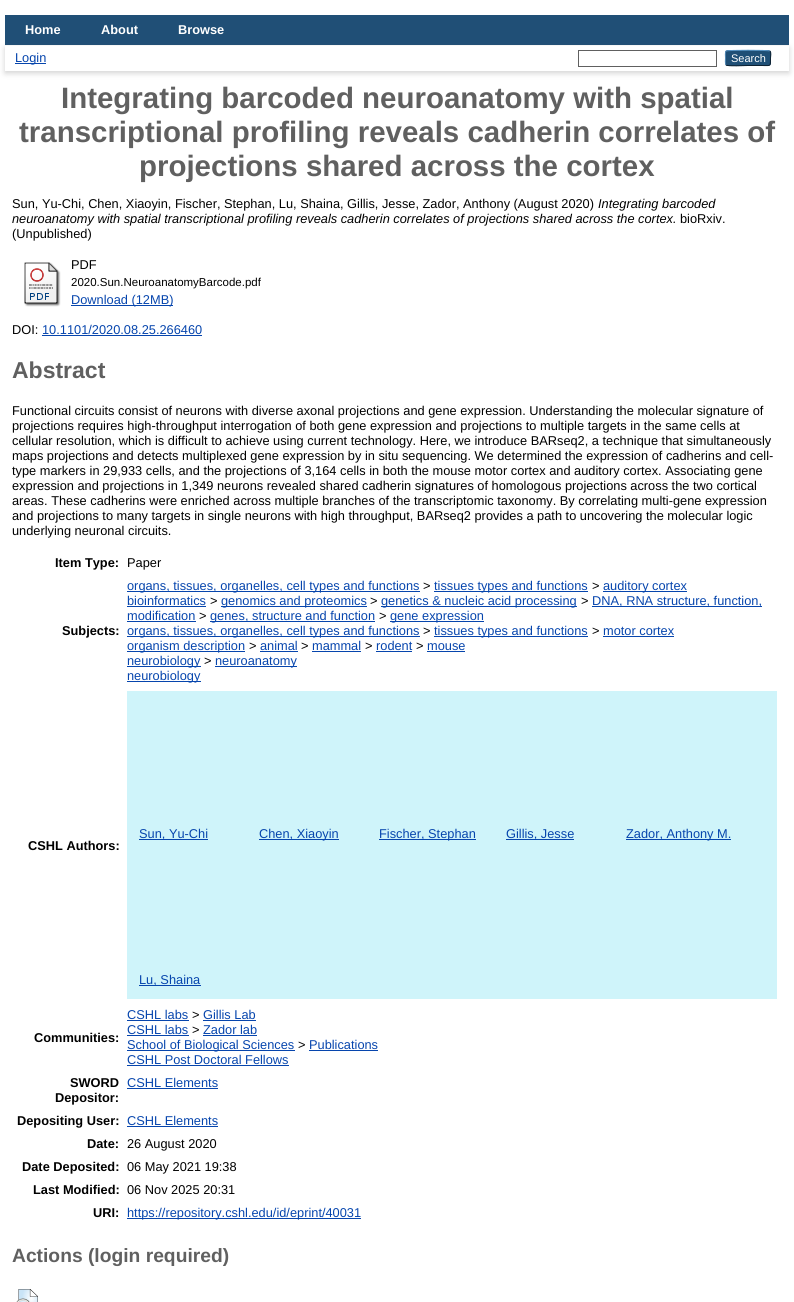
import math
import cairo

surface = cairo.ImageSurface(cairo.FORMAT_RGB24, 794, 1302)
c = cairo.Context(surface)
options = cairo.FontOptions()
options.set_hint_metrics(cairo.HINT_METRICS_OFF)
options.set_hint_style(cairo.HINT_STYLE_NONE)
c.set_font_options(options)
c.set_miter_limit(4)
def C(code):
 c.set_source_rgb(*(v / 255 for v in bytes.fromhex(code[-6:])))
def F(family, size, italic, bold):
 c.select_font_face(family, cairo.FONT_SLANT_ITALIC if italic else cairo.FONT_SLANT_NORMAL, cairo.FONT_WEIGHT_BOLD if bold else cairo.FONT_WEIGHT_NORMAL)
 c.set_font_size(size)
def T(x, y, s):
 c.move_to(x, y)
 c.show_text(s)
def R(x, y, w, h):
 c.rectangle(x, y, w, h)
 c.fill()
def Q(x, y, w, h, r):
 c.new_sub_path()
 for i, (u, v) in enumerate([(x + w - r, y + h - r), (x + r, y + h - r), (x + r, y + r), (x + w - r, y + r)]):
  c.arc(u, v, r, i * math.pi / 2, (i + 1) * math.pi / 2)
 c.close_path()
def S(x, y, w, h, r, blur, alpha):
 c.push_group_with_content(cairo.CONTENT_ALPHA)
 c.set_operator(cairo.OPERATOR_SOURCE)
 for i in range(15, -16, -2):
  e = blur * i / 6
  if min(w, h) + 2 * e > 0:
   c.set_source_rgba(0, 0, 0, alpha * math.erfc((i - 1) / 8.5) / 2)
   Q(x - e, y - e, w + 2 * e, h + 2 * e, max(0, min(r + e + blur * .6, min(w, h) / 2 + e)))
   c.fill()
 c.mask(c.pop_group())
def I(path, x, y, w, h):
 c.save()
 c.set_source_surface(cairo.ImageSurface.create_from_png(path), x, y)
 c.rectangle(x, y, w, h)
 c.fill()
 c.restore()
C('ffffff')
c.paint()
C('204f76')
R(5,15,784,30)
F('Liberation Sans',12.8,0,1)
C('ffffff')
T(25,34,'Home')
T(101,34,'About')
T(178,34,'Browse')
C('646464')
S(5,48,784,25,0,3,.3)
C('ffffff')
R(5,46,784,25)
C('0645ad')
R(15,63,31,1)
F('Liberation Sans',12.8,0,0)
T(15,62,'Login')
c.rectangle(578.5,50.5,138,16)
C('606060')
c.set_line_width(1)
c.stroke()
C('1f4f76')
Q(725,50,46,16,3)
c.fill()
c.new_path()
c.move_to(726,51)
c.curve_to(727.5,50,768.5,50,770,51)
C('5b97c7')
c.stroke()
c.new_path()
c.move_to(770,51)
c.curve_to(771.5,53,770.5,56,770.5,58)
c.curve_to(770.5,67,771,65.5,761.5,65.5)
c.line_to(748,65.5)
c.curve_to(744.5,65.5,728,66.5,726,65)
C('0d2131')
c.stroke()
c.new_path()
c.move_to(726,65)
c.curve_to(725,63.5,725.5,59.5,725.5,58)
c.curve_to(725.5,56.5,725,52.5,726,51)
C('5287b3')
c.stroke()
F('Liberation Sans',11,0,0)
C('ffffff')
T(731,62,'Search')
F('Liberation Sans',29.45,0,1)
C('606060')
T(61,108,'Integrating barcoded neuroanatomy with spatial')
T(19,142,'transcriptional profiling reveals cadherin correlates of')
T(139,176,'projections shared across the cortex')
F('Liberation Sans',12.8,0,0)
C('000000')
T(12,208,'Sun, Yu-Chi, Chen, Xiaoyin, Fischer, Stephan, Lu, Shaina, Gillis, Jesse, Zador, Anthony (August 2020)')
F('Liberation Sans',12.8,1,0)
T(598,208,'Integrating barcoded')
T(12,223,'neuroanatomy with spatial transcriptional profiling reveals cadherin correlates of projections shared across the cortex.')
F('Liberation Sans',12.8,0,0)
T(680,223,'bioRxiv.')
T(12,238,'(Unpublished)')
I('1.png',24,262,37,45)
T(71,269,'PDF')
F('Liberation Sans',11.5,0,0)
T(71,286,'2020.Sun.NeuroanatomyBarcode.pdf')
C('0645ad')
R(71,305,102,1)
F('Liberation Sans',12.8,0,0)
T(71,304,'Download (12MB)')
C('000000')
T(12,334,'DOI:')
C('0645ad')
T(42,334,'10.1101/2020.08.25.266460')
R(42,335,160,1)
F('Liberation Sans',23,0,1)
C('606060')
T(12,378,'Abstract')
F('Liberation Sans',12.8,0,0)
C('000000')
T(12,415,'Functional circuits consist of neurons with diverse axonal projections and gene expression. Understanding the molecular signature of')
T(12,430,'projections requires high-throughput interrogation of both gene expression and projections to multiple targets in the same cells at')
T(12,445,'cellular resolution, which is difficult to achieve using current technology. Here, we introduce BARseq2, a technique that simultaneously')
T(12,460,'maps projections and detects multiplexed gene expression by in situ sequencing. We determined the expression of cadherins and cell-')
T(12,475,'type markers in 29,933 cells, and the projections of 3,164 cells in both the mouse motor cortex and auditory cortex. Associating gene')
T(12,490,'expression and projections in 1,349 neurons revealed shared cadherin signatures of homologous projections across the two cortical')
T(12,505,'areas. These cadherins were enriched across multiple branches of the transcriptomic taxonomy. By correlating multi-gene expression')
T(12,520,'and projections to many targets in single neurons with high throughput, BARseq2 provides a path to uncovering the molecular logic')
T(12,535,'underlying neuronal circuits.')
F('Liberation Sans',12.8,0,1)
T(55,567,'Item Type:')
F('Liberation Sans',12.8,0,0)
T(127,567,'Paper')
F('Liberation Sans',12.8,0,1)
T(62,635,'Subjects:')
C('0645ad')
R(127,591,293,1)
F('Liberation Sans',12.8,0,0)
T(127,590,'organs, tissues, organelles, cell types and functions')
C('000000')
T(423,590,'>')
C('0645ad')
R(434,591,154,1)
T(434,590,'tissues types and functions')
C('000000')
T(592,590,'>')
C('0645ad')
R(603,591,84,1)
T(603,590,'auditory cortex')
T(127,605,'bioinformatics')
R(127,606,79,1)
C('000000')
T(210,605,'>')
C('0645ad')
R(221,606,146,1)
T(221,605,'genomics and proteomics')
C('000000')
T(370,605,'>')
C('0645ad')
R(381,606,196,1)
T(381,605,'genetics & nucleic acid processing')
C('000000')
T(581,605,'>')
C('0645ad')
R(592,606,170,1)
T(592,605,'DNA, RNA structure, function,')
T(127,620,'modification')
R(127,621,69,1)
C('000000')
T(199,620,'>')
C('0645ad')
R(210,621,165,1)
T(210,620,'genes, structure and function')
C('000000')
T(379,620,'>')
C('0645ad')
R(390,621,94,1)
T(390,620,'gene expression')
R(127,636,293,1)
T(127,635,'organs, tissues, organelles, cell types and functions')
C('000000')
T(423,635,'>')
C('0645ad')
R(434,636,154,1)
T(434,635,'tissues types and functions')
C('000000')
T(592,635,'>')
C('0645ad')
T(603,635,'motor cortex')
R(603,636,71,1)
R(127,651,118,1)
T(127,650,'organism description')
C('000000')
T(249,650,'>')
C('0645ad')
T(260,650,'animal')
R(260,651,38,1)
C('000000')
T(301,650,'>')
C('0645ad')
T(312,650,'mammal')
R(312,651,49,1)
C('000000')
T(365,650,'>')
C('0645ad')
T(376,650,'rodent')
R(376,651,36,1)
C('000000')
T(416,650,'>')
C('0645ad')
T(427,650,'mouse')
R(427,651,38,1)
R(127,666,74,1)
T(127,665,'neurobiology')
C('000000')
T(204,665,'>')
C('0645ad')
R(215,666,82,1)
T(215,665,'neuroanatomy')
R(127,681,74,1)
T(127,680,'neurobiology')
F('Liberation Sans',12.8,0,1)
C('000000')
T(28,850,'CSHL Authors:')
C('cff4fa')
R(127,691,650,308)
C('0645ad')
R(139,839,69,1)
F('Liberation Sans',12.8,0,0)
T(139,838,'Sun, Yu-Chi')
R(259,839,80,1)
T(259,838,'Chen, Xiaoyin')
R(379,839,97,1)
T(379,838,'Fischer, Stephan')
R(506,839,68,1)
T(506,838,'Gillis, Jesse')
R(626,839,105,1)
T(626,838,'Zador, Anthony M.')
R(139,985,62,1)
T(139,984,'Lu, Shaina')
F('Liberation Sans',12.8,0,1)
C('000000')
T(34,1042,'Communities:')
F('Liberation Sans',12.8,0,0)
C('0645ad')
T(127,1019,'CSHL labs')
R(127,1020,62,1)
C('000000')
T(192,1019,'>')
C('0645ad')
T(203,1019,'Gillis Lab')
R(203,1020,53,1)
T(127,1034,'CSHL labs')
R(127,1035,62,1)
C('000000')
T(192,1034,'>')
C('0645ad')
T(203,1034,'Zador lab')
R(203,1035,54,1)
R(127,1050,168,1)
T(127,1049,'School of Biological Sciences')
C('000000')
T(298,1049,'>')
C('0645ad')
T(309,1049,'Publications')
R(309,1050,69,1)
T(127,1064,'CSHL Post Doctoral Fellows')
R(127,1065,162,1)
F('Liberation Sans',12.8,0,1)
C('000000')
T(70,1087,'SWORD')
T(55,1102,'Depositor:')
F('Liberation Sans',12.8,0,0)
C('0645ad')
T(127,1087,'CSHL Elements')
R(127,1088,91,1)
F('Liberation Sans',12.8,0,1)
C('000000')
T(17,1125,'Depositing User:')
F('Liberation Sans',12.8,0,0)
C('0645ad')
T(127,1125,'CSHL Elements')
R(127,1126,91,1)
F('Liberation Sans',12.8,0,1)
C('000000')
T(87,1148,'Date:')
F('Liberation Sans',12.8,0,0)
T(127,1148,'26 August 2020')
F('Liberation Sans',12.8,0,1)
T(22,1171,'Date Deposited:')
F('Liberation Sans',12.8,0,0)
T(127,1171,'06 May 2021 19:38')
F('Liberation Sans',12.8,0,1)
T(33,1194,'Last Modified:')
F('Liberation Sans',12.8,0,0)
T(127,1194,'06 Nov 2025 20:31')
F('Liberation Sans',12.8,0,1)
T(93,1217,'URI:')
C('0645ad')
R(127,1218,234,1)
F('Liberation Sans',12.8,0,0)
T(127,1217,'https://repository.cshl.edu/id/eprint/40031')
F('Liberation Sans',19.25,0,1)
C('606060')
T(12,1262,'Actions (login required)')
I('2.png',16,1289,22,13)
surface.write_to_png('o.png')
